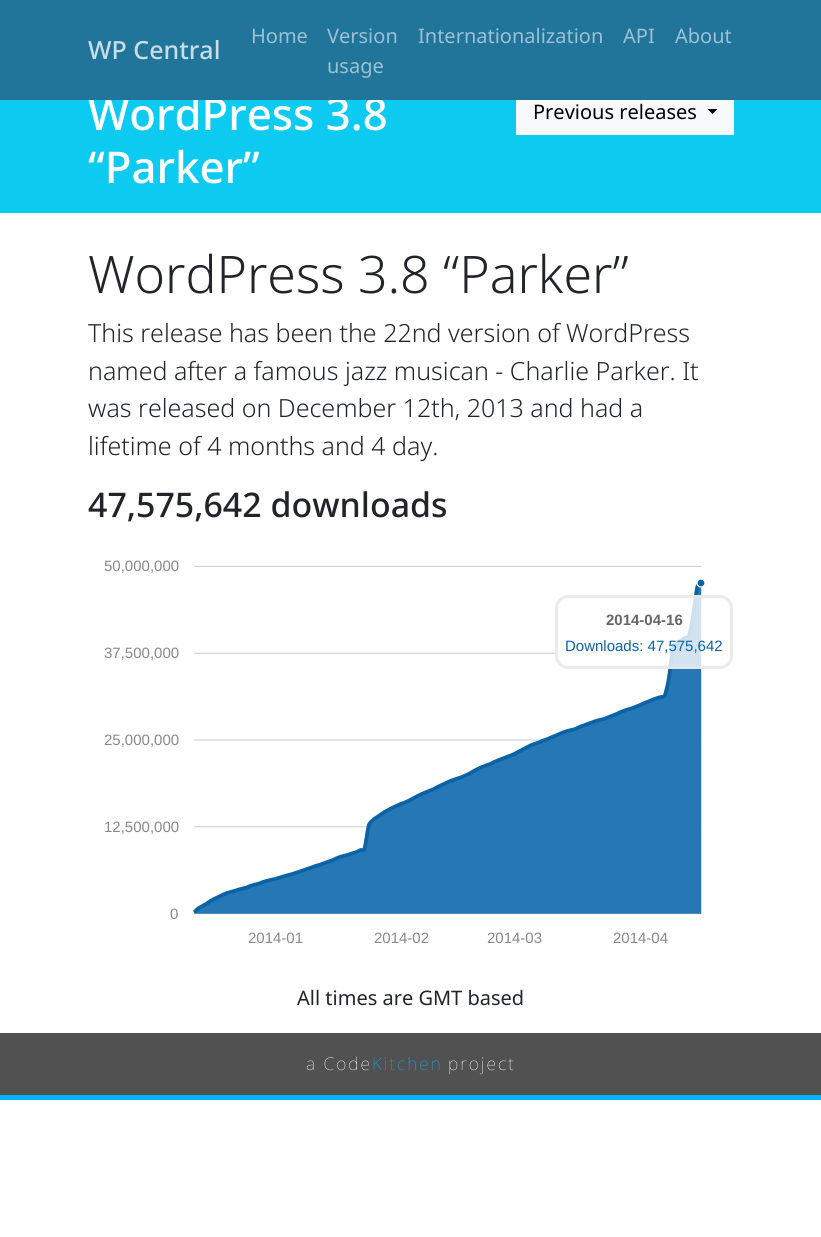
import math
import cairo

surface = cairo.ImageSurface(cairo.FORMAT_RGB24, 821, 1237)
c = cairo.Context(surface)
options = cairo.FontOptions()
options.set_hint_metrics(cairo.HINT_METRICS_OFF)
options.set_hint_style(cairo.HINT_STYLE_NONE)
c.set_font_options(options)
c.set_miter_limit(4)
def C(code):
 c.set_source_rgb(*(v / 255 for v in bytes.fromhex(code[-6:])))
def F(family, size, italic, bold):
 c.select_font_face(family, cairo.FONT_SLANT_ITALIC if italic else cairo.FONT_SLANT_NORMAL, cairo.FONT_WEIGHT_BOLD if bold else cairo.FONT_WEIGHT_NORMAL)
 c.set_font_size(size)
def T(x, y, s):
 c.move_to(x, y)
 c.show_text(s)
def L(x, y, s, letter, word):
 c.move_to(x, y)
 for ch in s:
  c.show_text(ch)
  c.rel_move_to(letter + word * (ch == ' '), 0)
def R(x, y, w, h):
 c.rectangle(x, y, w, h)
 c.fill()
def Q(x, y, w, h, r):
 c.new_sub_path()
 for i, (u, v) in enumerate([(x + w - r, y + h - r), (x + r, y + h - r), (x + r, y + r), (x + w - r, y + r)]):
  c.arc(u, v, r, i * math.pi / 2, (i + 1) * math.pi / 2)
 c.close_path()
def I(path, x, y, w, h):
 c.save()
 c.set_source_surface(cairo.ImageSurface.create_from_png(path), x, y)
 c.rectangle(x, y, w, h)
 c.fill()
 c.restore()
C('ffffff')
c.paint()
C('0dcaf0')
R(0,100,821,113)
F('Noto Sans Medium',43.75,0,0)
C('ffffff')
T(88,130,'WordPress 3.8')
C('21759b')
R(0,0,821,100)
F('Noto Sans Medium',25,0,0)
C('c8dde6')
T(88,59,'WP Central')
F('Noto Sans',20,0,0)
C('9bc1d2')
T(251,43,'Home')
T(327,43,'Version')
T(327,73,'usage')
T(418,43,'Internationalization')
T(623,43,'API')
T(675,43,'About')
F('Noto Sans Medium',43.75,0,0)
C('ffffff')
T(88,183,'“Parker”')
C('f8f9fa')
R(516,100,218,35)
F('Noto Sans',20,0,0)
C('000000')
T(533,119,'Previous releases')
c.new_path()
c.move_to(707.5,109)
c.line_to(717.5,109)
c.line_to(712.5,114)
c.close_path()
c.fill()
F('Noto Sans Light',51.75,0,0)
C('212529')
T(88,293,'WordPress 3.8 “Parker”')
F('Noto Sans Light',25,0,0)
T(88,342,'This release has been the 22nd version of WordPress')
T(88,380,'named after a famous jazz musican - Charlie Parker. It')
T(88,417,'was released on December 12th, 2013 and had a')
T(88,455,'lifetime of 4 months and 4 day.')
F('Noto Sans Medium',33.9,0,0)
T(88,517,'47,575,642 downloads')
F('Liberation Sans',15,0,0)
C('888888')
T(104,571,'50,000,000')
I('1.png',193,565,512,350)
T(104,658,'37,500,000')
c.set_source_rgba(1,1,1,0.8)
Q(555,595,178,74,13)
c.fill()
Q(556.5,596.5,175,71,11.5)
c.set_source_rgba(0.902,0.902,0.902,0.8)
c.set_line_width(3)
c.stroke()
F('Liberation Sans',15,0,1)
C('666666')
T(606,625,'2014-04-16')
F('Liberation Sans',15,0,0)
C('0b62a4')
T(565,651,'Downloads: 47,575,642')
C('888888')
T(104,745,'25,000,000')
T(104,832,'12,500,000')
T(170,919,'0')
T(248,943,'2014-01')
T(374,943,'2014-02')
T(487,943,'2014-03')
T(613,943,'2014-04')
F('Noto Sans',20,0,0)
C('212529')
T(297,1005,'All times are GMT based')
C('515151')
R(0,1033,821,62)
C('00b4ff')
R(0,1095,821,5)
F('Noto Sans Thin',17.5,0,0)
C('ffffff')
L(306,1070,'a Code',2,0)
C('08b1ff')
L(372,1070,'Kitchen',2,0)
C('ffffff')
L(448,1070,'project',2,0)
surface.write_to_png('o.png')
